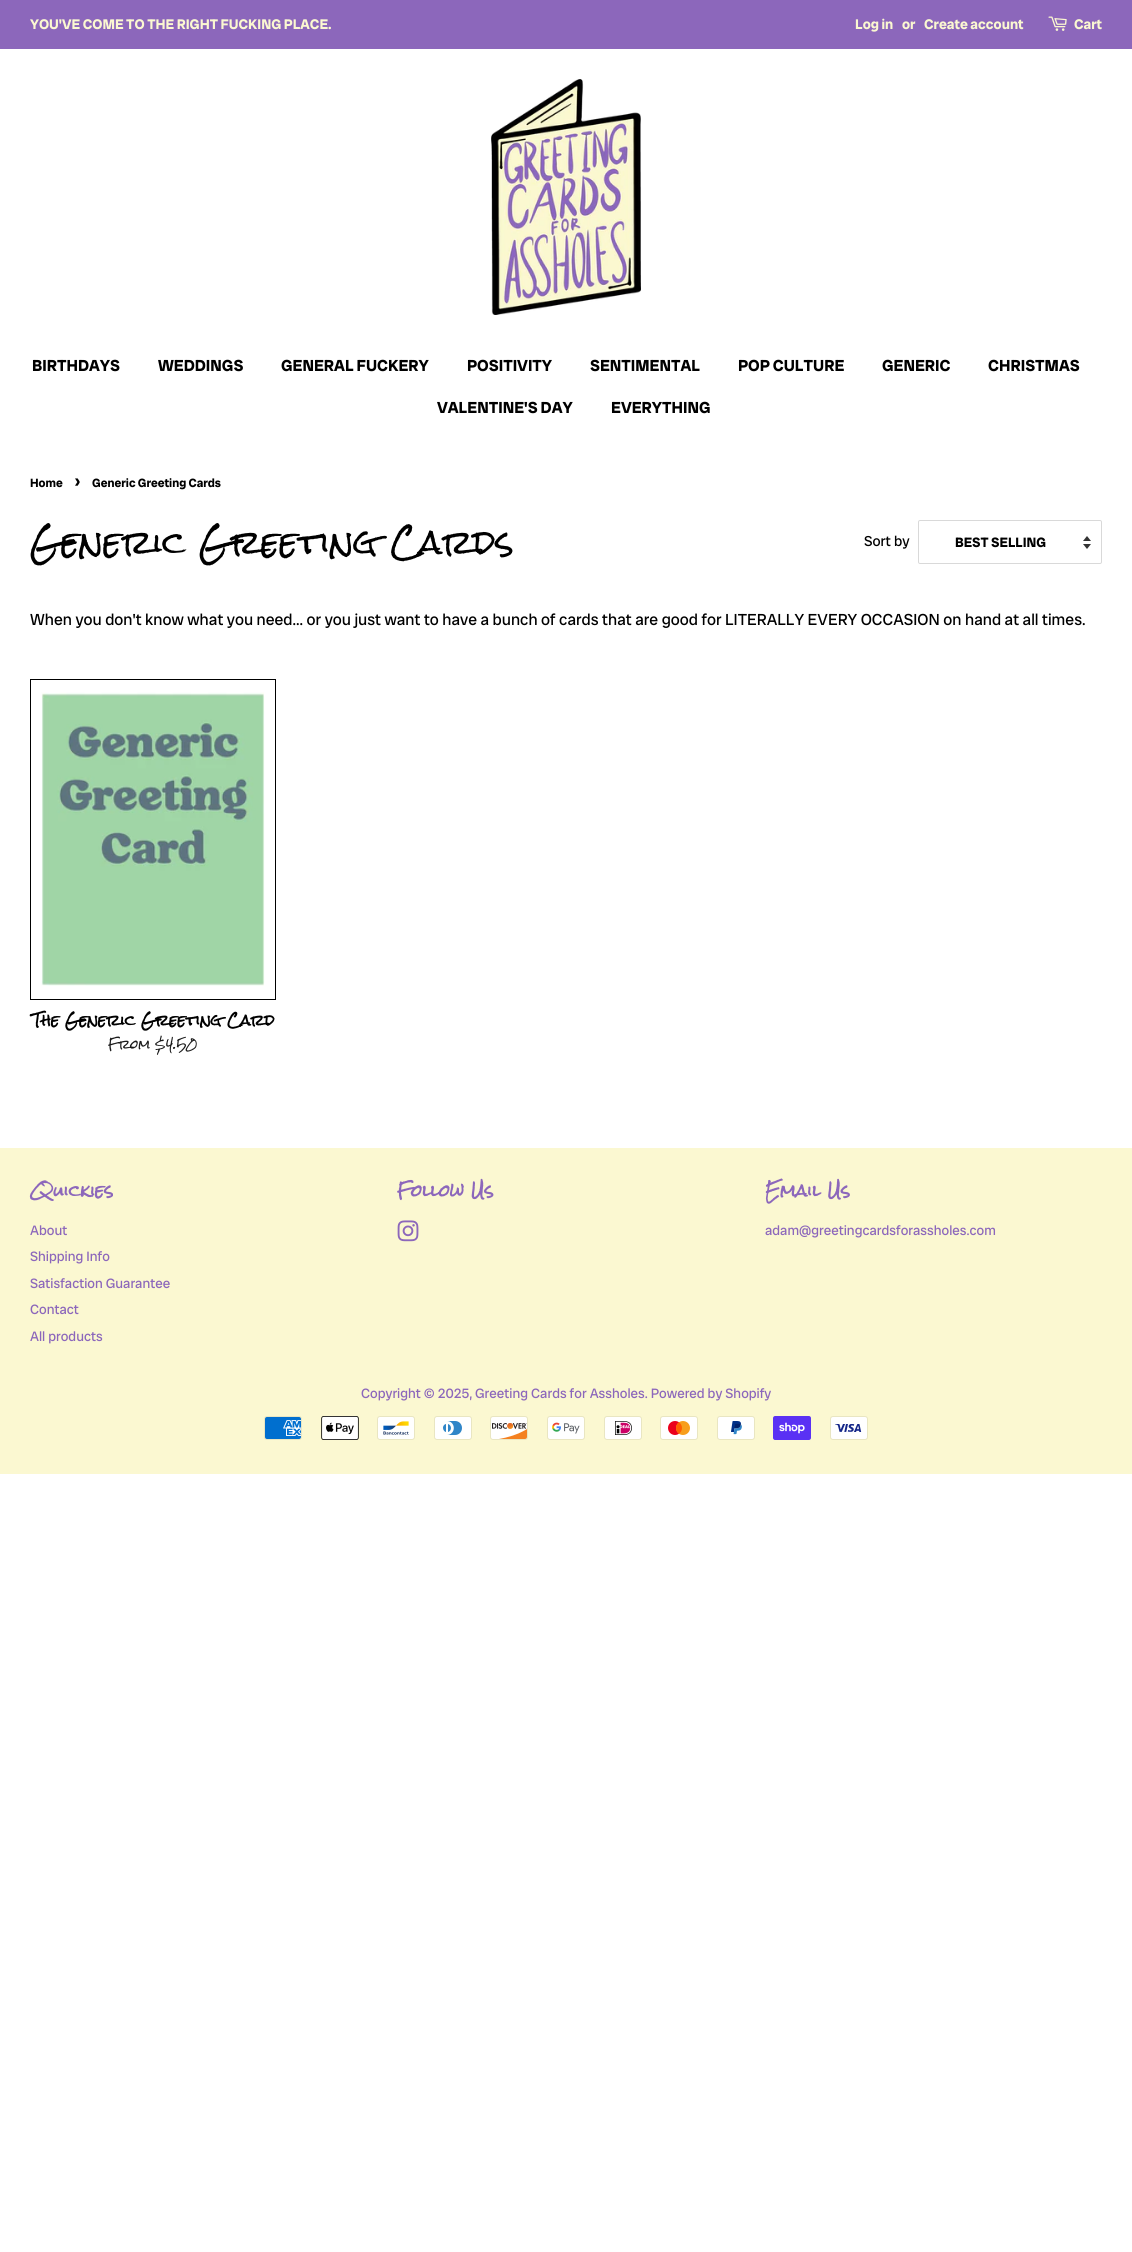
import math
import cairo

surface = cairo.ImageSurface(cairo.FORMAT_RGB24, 1132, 2252)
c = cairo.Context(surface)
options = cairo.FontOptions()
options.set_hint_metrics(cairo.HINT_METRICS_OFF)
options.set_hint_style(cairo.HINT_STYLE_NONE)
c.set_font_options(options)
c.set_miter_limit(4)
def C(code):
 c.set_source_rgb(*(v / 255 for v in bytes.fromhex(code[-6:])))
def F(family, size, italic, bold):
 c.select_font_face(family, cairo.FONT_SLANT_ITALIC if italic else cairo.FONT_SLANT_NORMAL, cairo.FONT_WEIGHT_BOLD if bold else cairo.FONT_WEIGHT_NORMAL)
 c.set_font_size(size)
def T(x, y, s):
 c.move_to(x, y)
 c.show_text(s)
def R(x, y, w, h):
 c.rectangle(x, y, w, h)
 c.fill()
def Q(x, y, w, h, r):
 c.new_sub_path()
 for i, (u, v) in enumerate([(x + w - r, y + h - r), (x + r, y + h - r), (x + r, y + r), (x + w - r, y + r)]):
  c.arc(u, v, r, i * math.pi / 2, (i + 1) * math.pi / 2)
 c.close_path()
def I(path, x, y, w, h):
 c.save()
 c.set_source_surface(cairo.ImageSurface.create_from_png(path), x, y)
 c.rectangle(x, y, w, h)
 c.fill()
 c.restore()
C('ffffff')
c.paint()
C('8c67bb')
R(0,0,1132,49)
F('Radio Canada Big',14,0,1)
C('fbf8d1')
T(30,29,'YOU\'VE COME TO THE RIGHT FUCKING PLACE.')
T(855,29,'Log in')
T(902,29,'or')
T(924,29,'Create account')
I('1.png',1048,16,19,15)
T(1074,29,'Cart')
I('2.png',491,79,150,236)
F('Radio Canada Big',16,0,1)
C('000000')
T(32,371,'BIRTHDAYS')
T(158,371,'WEDDINGS')
T(281,371,'GENERAL FUCKERY')
T(467,371,'POSITIVITY')
T(590,371,'SENTIMENTAL')
T(738,371,'POP CULTURE')
T(882,371,'GENERIC')
T(988,371,'CHRISTMAS')
T(437,413,'VALENTINE\'S DAY')
T(611,413,'EVERYTHING')
F('Radio Canada Big',12,0,1)
T(30,487,'Home')
F('Radio Canada Big',17,0,1)
T(75,487,'›')
F('Radio Canada Big',12,0,1)
T(92,487,'Generic Greeting Cards')
F('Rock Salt',32,0,0)
T(30,555,'Generic Greeting Cards')
F('Radio Canada Big',14.4,0,0)
T(864,546,'Sort by')
I('3.png',1083,536,8,13)
Q(918.5,520.5,183,43,1.5)
C('d9d9d9')
c.set_line_width(1)
c.stroke()
F('Radio Canada Big',13.6,0,1)
C('000000')
T(955,547,'BEST SELLING')
F('Radio Canada Big',16,0,0)
T(30,625,'When you don\'t know what you need... or you just want to have a bunch of cards that are good for LITERALLY EVERY OCCASION on hand at all times.')
c.rectangle(30.5,679.5,245,320)
c.stroke()
I('4.png',41,692,224,294)
F('Rock Salt',14.4,0,1)
T(32,1026,'The Generic Greeting Card')
F('Rock Salt',12,0,0)
C('1a1a1a')
T(108,1049,'From $4.50')
C('fbf8d1')
R(0,1148,1132,326)
F('Rock Salt',16,0,1)
C('8c67bb')
T(30,1197,'Quickies')
F('Radio Canada Big',13.6,0,0)
T(30,1235,'About')
T(30,1261,'Shipping Info')
T(30,1288,'Satisfaction Guarantee')
T(30,1314,'Contact')
T(30,1341,'All products')
F('Rock Salt',16,0,1)
T(397,1197,'Follow Us')
I('5.png',397,1220,22,22)
T(765,1197,'Email Us')
F('Radio Canada Big',13.6,0,0)
T(765,1235,'adam@greetingcardsforassholes.com')
T(361,1398,'Copyright © 2025, Greeting Cards for Assholes. Powered by Shopify')
I('6.png',264,1416,38,24)
I('7.png',321,1416,38,24)
I('8.png',377,1416,38,24)
I('9.png',434,1416,38,24)
I('10.png',490,1416,38,24)
I('11.png',547,1416,38,24)
I('12.png',604,1416,38,24)
I('13.png',660,1416,38,24)
I('14.png',717,1416,38,24)
I('15.png',773,1416,38,24)
I('16.png',830,1416,38,24)
surface.write_to_png('o.png')
